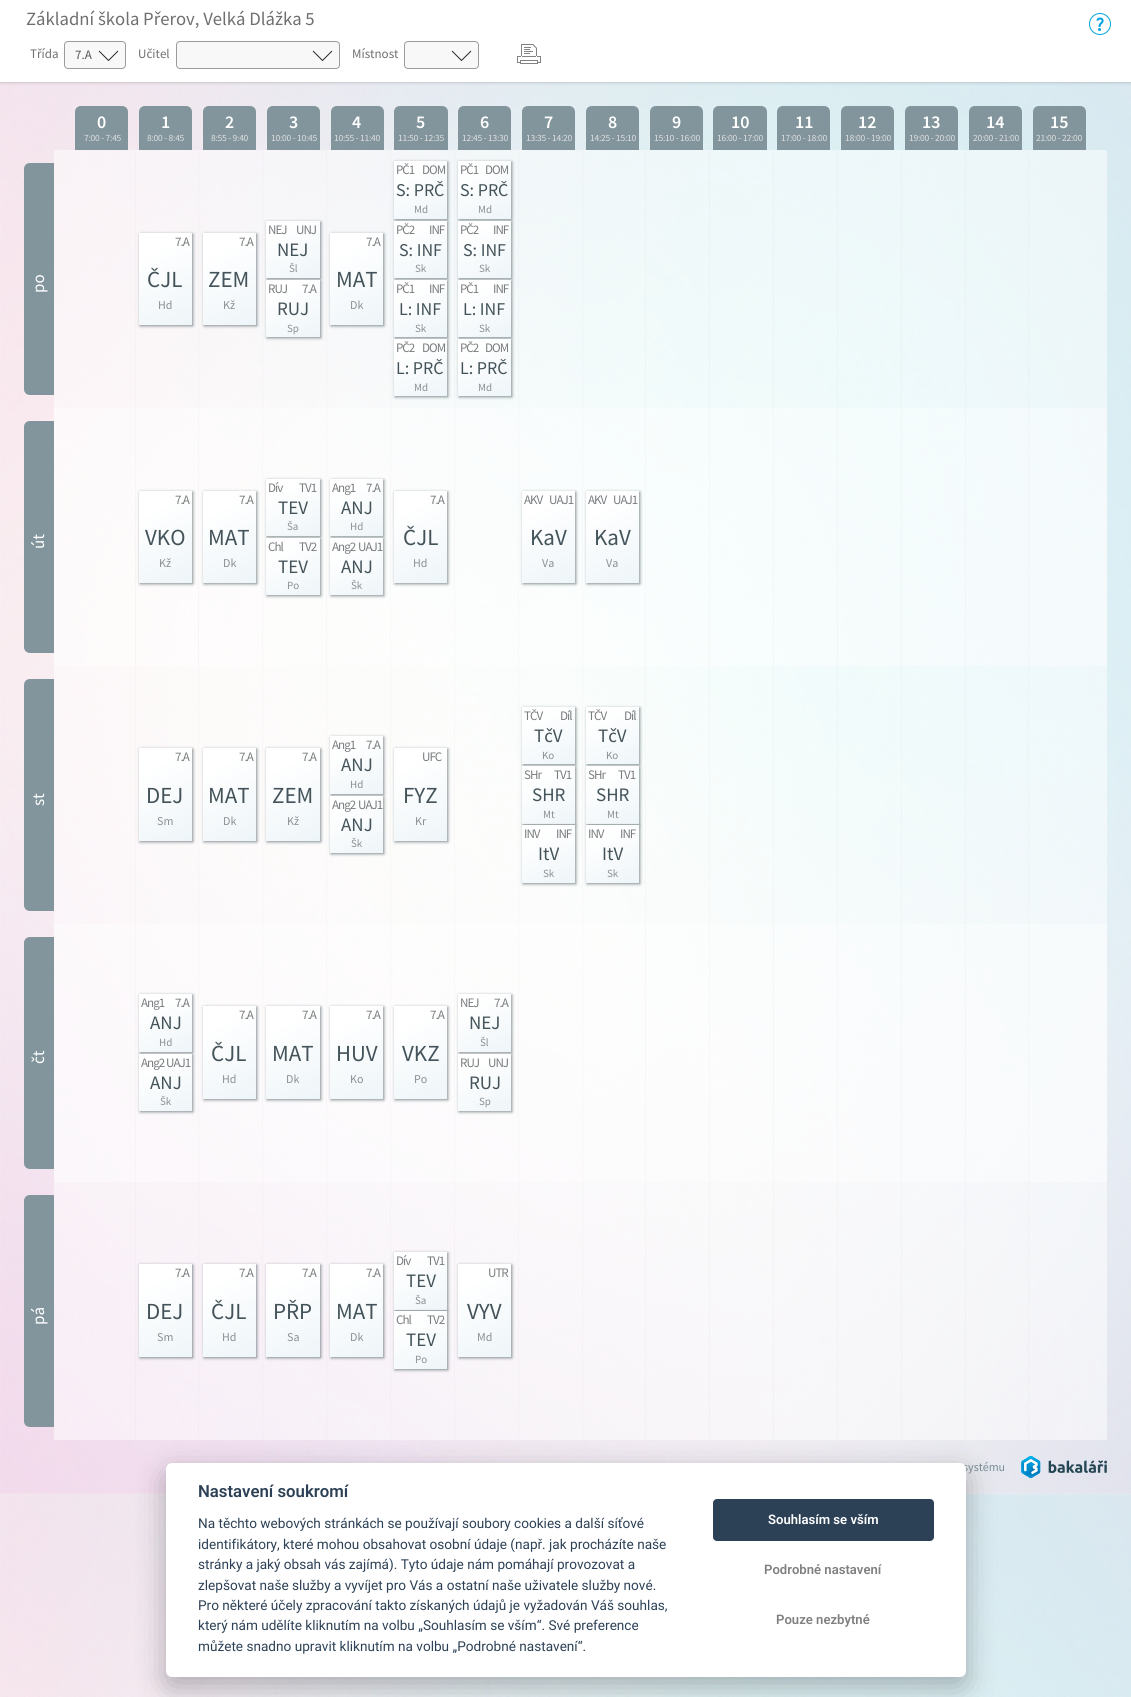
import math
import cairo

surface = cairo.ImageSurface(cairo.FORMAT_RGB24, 1131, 1697)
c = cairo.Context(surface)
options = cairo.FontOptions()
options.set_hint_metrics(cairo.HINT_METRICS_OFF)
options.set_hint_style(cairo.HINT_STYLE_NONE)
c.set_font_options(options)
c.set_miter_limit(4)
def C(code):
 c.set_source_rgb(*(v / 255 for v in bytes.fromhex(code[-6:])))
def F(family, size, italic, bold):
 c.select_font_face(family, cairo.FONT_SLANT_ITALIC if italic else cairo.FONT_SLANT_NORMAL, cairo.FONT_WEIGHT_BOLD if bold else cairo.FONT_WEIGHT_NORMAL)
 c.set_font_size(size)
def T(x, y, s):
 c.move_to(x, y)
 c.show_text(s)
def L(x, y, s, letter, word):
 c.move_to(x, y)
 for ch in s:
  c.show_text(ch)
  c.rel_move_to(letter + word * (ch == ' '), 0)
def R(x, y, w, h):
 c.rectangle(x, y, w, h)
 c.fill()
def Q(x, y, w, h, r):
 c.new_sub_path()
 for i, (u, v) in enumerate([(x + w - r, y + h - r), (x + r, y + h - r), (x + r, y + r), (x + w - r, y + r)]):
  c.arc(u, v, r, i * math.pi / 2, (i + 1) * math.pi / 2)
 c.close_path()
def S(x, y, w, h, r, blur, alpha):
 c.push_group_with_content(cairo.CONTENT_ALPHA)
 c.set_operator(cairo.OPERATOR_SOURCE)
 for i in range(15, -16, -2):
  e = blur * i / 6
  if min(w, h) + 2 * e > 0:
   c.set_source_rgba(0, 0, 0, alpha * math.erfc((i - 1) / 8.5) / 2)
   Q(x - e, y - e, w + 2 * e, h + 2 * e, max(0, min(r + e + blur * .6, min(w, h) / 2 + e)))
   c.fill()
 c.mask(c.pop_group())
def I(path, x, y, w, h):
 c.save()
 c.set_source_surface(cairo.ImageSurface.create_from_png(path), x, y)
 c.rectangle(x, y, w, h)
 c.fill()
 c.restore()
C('ffffff')
c.paint()
I('1.png',0,82,1131,1615)
C('000000')
S(0,0,1131,82,0,2,.25)
C('ffffff')
R(0,0,1131,82)
F('Source Sans Pro',18.7,0,0)
C('6f6f6f')
T(26,25,'Základní škola Přerov, Velká Dlážka 5')
F('Source Sans Pro',13,0,0)
T(30,58,'Třída')
C('f8f8f8')
Q(64.5,41.5,61,27,3.5)
c.fill_preserve()
C('9b9b9b')
c.set_line_width(1)
c.stroke()
C('555555')
T(75,59,'7.A')
I('2.png',98,50,21,11)
C('6f6f6f')
T(138,58,'Učitel')
C('f8f8f8')
Q(176.5,41.5,163,27,3.5)
c.fill_preserve()
C('9b9b9b')
c.stroke()
I('2.png',312,50,21,11)
C('6f6f6f')
T(352,58,'Místnost')
C('f8f8f8')
Q(404.5,41.5,74,27,3.5)
c.fill_preserve()
C('9b9b9b')
c.stroke()
I('2.png',451,50,21,11)
I('3.png',517,44,24,20)
I('4.png',1089,13,22,22)
C('82959c')
c.new_path()
c.move_to(81,106)
c.line_to(122,106)
c.curve_to(125.5,106,128,108.5,128,112)
c.line_to(128,150)
c.line_to(75,150)
c.line_to(75,112)
c.curve_to(75,108.5,77.5,106,81,106)
c.close_path()
c.fill()
F('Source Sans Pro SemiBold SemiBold',18,0,0)
C('ffffff')
T(97,128,'0')
F('Source Sans Pro',9.5,0,0)
C('e0e0e0')
L(84,141,'7:00 - 7:45',-.25,0)
C('82959c')
c.new_path()
c.move_to(145,106)
c.line_to(186,106)
c.curve_to(189.5,106,192,108.5,192,112)
c.line_to(192,150)
c.line_to(139,150)
c.line_to(139,112)
c.curve_to(139,108.5,141.5,106,145,106)
c.close_path()
c.fill()
F('Source Sans Pro SemiBold SemiBold',18,0,0)
C('ffffff')
T(161,128,'1')
F('Source Sans Pro',9.5,0,0)
C('e0e0e0')
L(147,141,'8:00 - 8:45',-.25,0)
C('82959c')
c.new_path()
c.move_to(209,106)
c.line_to(250,106)
c.curve_to(253.5,106,256,108.5,256,112)
c.line_to(256,150)
c.line_to(203,150)
c.line_to(203,112)
c.curve_to(203,108.5,205.5,106,209,106)
c.close_path()
c.fill()
F('Source Sans Pro SemiBold SemiBold',18,0,0)
C('ffffff')
T(225,128,'2')
F('Source Sans Pro',9.5,0,0)
C('e0e0e0')
L(211,141,'8:55 - 9:40',-.25,0)
C('82959c')
c.new_path()
c.move_to(273,106)
c.line_to(314,106)
c.curve_to(317.5,106,320,108.5,320,112)
c.line_to(320,150)
c.line_to(267,150)
c.line_to(267,112)
c.curve_to(267,108.5,269.5,106,273,106)
c.close_path()
c.fill()
F('Source Sans Pro SemiBold SemiBold',18,0,0)
C('ffffff')
T(289,128,'3')
F('Source Sans Pro',9.5,0,0)
C('e0e0e0')
L(271,141,'10:00 - 10:45',-.25,0)
C('82959c')
c.new_path()
c.move_to(337,106)
c.line_to(378,106)
c.curve_to(381.5,106,384,108.5,384,112)
c.line_to(384,150)
c.line_to(331,150)
c.line_to(331,112)
c.curve_to(331,108.5,333.5,106,337,106)
c.close_path()
c.fill()
F('Source Sans Pro SemiBold SemiBold',18,0,0)
C('ffffff')
T(352,128,'4')
F('Source Sans Pro',9.5,0,0)
C('e0e0e0')
L(334,141,'10:55 - 11:40',-.25,0)
C('82959c')
c.new_path()
c.move_to(400,106)
c.line_to(442,106)
c.curve_to(445.5,106,448,108.5,448,112)
c.line_to(448,150)
c.line_to(394,150)
c.line_to(394,112)
c.curve_to(394,108.5,396.5,106,400,106)
c.close_path()
c.fill()
F('Source Sans Pro SemiBold SemiBold',18,0,0)
C('ffffff')
T(416,128,'5')
F('Source Sans Pro',9.5,0,0)
C('e0e0e0')
L(398,141,'11:50 - 12:35',-.25,0)
C('82959c')
c.new_path()
c.move_to(464,106)
c.line_to(505,106)
c.curve_to(508.5,106,511,108.5,511,112)
c.line_to(511,150)
c.line_to(458,150)
c.line_to(458,112)
c.curve_to(458,108.5,460.5,106,464,106)
c.close_path()
c.fill()
F('Source Sans Pro SemiBold SemiBold',18,0,0)
C('ffffff')
T(480,128,'6')
F('Source Sans Pro',9.5,0,0)
C('e0e0e0')
L(462,141,'12:45 - 13:30',-.25,0)
C('82959c')
c.new_path()
c.move_to(528,106)
c.line_to(569,106)
c.curve_to(572.5,106,575,108.5,575,112)
c.line_to(575,150)
c.line_to(522,150)
c.line_to(522,112)
c.curve_to(522,108.5,524.5,106,528,106)
c.close_path()
c.fill()
F('Source Sans Pro SemiBold SemiBold',18,0,0)
C('ffffff')
T(544,128,'7')
F('Source Sans Pro',9.5,0,0)
C('e0e0e0')
L(526,141,'13:35 - 14:20',-.25,0)
C('82959c')
c.new_path()
c.move_to(592,106)
c.line_to(633,106)
c.curve_to(636.5,106,639,108.5,639,112)
c.line_to(639,150)
c.line_to(586,150)
c.line_to(586,112)
c.curve_to(586,108.5,588.5,106,592,106)
c.close_path()
c.fill()
F('Source Sans Pro SemiBold SemiBold',18,0,0)
C('ffffff')
T(608,128,'8')
F('Source Sans Pro',9.5,0,0)
C('e0e0e0')
L(590,141,'14:25 - 15:10',-.25,0)
C('82959c')
c.new_path()
c.move_to(656,106)
c.line_to(697,106)
c.curve_to(700.5,106,703,108.5,703,112)
c.line_to(703,150)
c.line_to(650,150)
c.line_to(650,112)
c.curve_to(650,108.5,652.5,106,656,106)
c.close_path()
c.fill()
F('Source Sans Pro SemiBold SemiBold',18,0,0)
C('ffffff')
T(672,128,'9')
F('Source Sans Pro',9.5,0,0)
C('e0e0e0')
L(654,141,'15:10 - 16:00',-.25,0)
C('82959c')
c.new_path()
c.move_to(719,106)
c.line_to(761,106)
c.curve_to(764.5,106,767,108.5,767,112)
c.line_to(767,150)
c.line_to(713,150)
c.line_to(713,112)
c.curve_to(713,108.5,715.5,106,719,106)
c.close_path()
c.fill()
F('Source Sans Pro SemiBold SemiBold',18,0,0)
C('ffffff')
T(731,128,'10')
F('Source Sans Pro',9.5,0,0)
C('e0e0e0')
L(717,141,'16:00 - 17:00',-.25,0)
C('82959c')
c.new_path()
c.move_to(783,106)
c.line_to(824,106)
c.curve_to(827.5,106,830,108.5,830,112)
c.line_to(830,150)
c.line_to(777,150)
c.line_to(777,112)
c.curve_to(777,108.5,779.5,106,783,106)
c.close_path()
c.fill()
F('Source Sans Pro SemiBold SemiBold',18,0,0)
C('ffffff')
T(795,128,'11')
F('Source Sans Pro',9.5,0,0)
C('e0e0e0')
L(781,141,'17:00 - 18:00',-.25,0)
C('82959c')
c.new_path()
c.move_to(847,106)
c.line_to(888,106)
c.curve_to(891.5,106,894,108.5,894,112)
c.line_to(894,150)
c.line_to(841,150)
c.line_to(841,112)
c.curve_to(841,108.5,843.5,106,847,106)
c.close_path()
c.fill()
F('Source Sans Pro SemiBold SemiBold',18,0,0)
C('ffffff')
T(858,128,'12')
F('Source Sans Pro',9.5,0,0)
C('e0e0e0')
L(845,141,'18:00 - 19:00',-.25,0)
C('82959c')
c.new_path()
c.move_to(911,106)
c.line_to(952,106)
c.curve_to(955.5,106,958,108.5,958,112)
c.line_to(958,150)
c.line_to(905,150)
c.line_to(905,112)
c.curve_to(905,108.5,907.5,106,911,106)
c.close_path()
c.fill()
F('Source Sans Pro SemiBold SemiBold',18,0,0)
C('ffffff')
T(922,128,'13')
F('Source Sans Pro',9.5,0,0)
C('e0e0e0')
L(909,141,'19:00 - 20:00',-.25,0)
C('82959c')
c.new_path()
c.move_to(975,106)
c.line_to(1016,106)
c.curve_to(1019.5,106,1022,108.5,1022,112)
c.line_to(1022,150)
c.line_to(969,150)
c.line_to(969,112)
c.curve_to(969,108.5,971.5,106,975,106)
c.close_path()
c.fill()
F('Source Sans Pro SemiBold SemiBold',18,0,0)
C('ffffff')
T(986,128,'14')
F('Source Sans Pro',9.5,0,0)
C('e0e0e0')
L(973,141,'20:00 - 21:00',-.25,0)
C('82959c')
c.new_path()
c.move_to(1039,106)
c.line_to(1080,106)
c.curve_to(1083.5,106,1086,108.5,1086,112)
c.line_to(1086,150)
c.line_to(1033,150)
c.line_to(1033,112)
c.curve_to(1033,108.5,1035.5,106,1039,106)
c.close_path()
c.fill()
F('Source Sans Pro SemiBold SemiBold',18,0,0)
C('ffffff')
T(1050,128,'15')
F('Source Sans Pro',9.5,0,0)
C('e0e0e0')
L(1036,141,'21:00 - 22:00',-.25,0)
C('82959c')
c.new_path()
c.move_to(30,163)
c.line_to(54,163)
c.line_to(54,395)
c.line_to(30,395)
c.curve_to(26.5,395,24,392.5,24,389)
c.line_to(24,169)
c.curve_to(24,165.5,26.5,163,30,163)
c.close_path()
c.fill()
F('Source Sans Pro',17,0,0)
C('ffffff')
c.save()
c.translate(44,293)
c.rotate(-90 * math.pi / 180)
T(0,0,'po')
c.restore()
c.set_source_rgba(1,1,1,0.5)
R(54,150,1053,258)
c.set_source_rgba(0.263,0.325,0.349,0.03)
R(135,150,1,258)
C('435359')
S(140,234,53,92,0,1.5,.65)
gradient = cairo.LinearGradient(141,232,190,326)
gradient.add_color_stop_rgba(.21,1,1,1,1)
gradient.add_color_stop_rgba(1,0.933,0.961,0.973,1)
c.set_source(gradient)
R(139,233,53,92)
F('Source Sans Pro',13,0,0)
C('797c7e')
L(175,246,'7.A',-1,0)
F('Source Sans Pro',23,0,0)
C('435359')
T(147,287,'ČJL')
F('Source Sans Pro',12,0,0)
C('8b8f92')
T(158,309,'Hd')
c.set_source_rgba(0.263,0.325,0.349,0.03)
R(198,150,1,258)
C('435359')
S(204,234,53,92,0,1.5,.65)
gradient = cairo.LinearGradient(205,232,254,326)
gradient.add_color_stop_rgba(.21,1,1,1,1)
gradient.add_color_stop_rgba(1,0.933,0.961,0.973,1)
c.set_source(gradient)
R(203,233,53,92)
F('Source Sans Pro',13,0,0)
C('797c7e')
L(239,246,'7.A',-1,0)
F('Source Sans Pro',23,0,0)
C('435359')
T(208,287,'ZEM')
F('Source Sans Pro',12,0,0)
C('8b8f92')
T(223,309,'Kž')
c.set_source_rgba(0.263,0.325,0.349,0.03)
R(262,150,1,258)
C('435359')
S(267,222,54,57,0,1.5,.65)
gradient = cairo.LinearGradient(275,216,311,283)
gradient.add_color_stop_rgba(.21,1,1,1,1)
gradient.add_color_stop_rgba(1,0.933,0.961,0.973,1)
c.set_source(gradient)
R(266,221,54,57)
F('Source Sans Pro',13,0,0)
C('797c7e')
L(268,234,'NEJ',-1,0)
L(296,234,'UNJ',-1,0)
F('Source Sans Pro',19,0,0)
C('435359')
T(277,256,'NEJ')
F('Source Sans Pro',11,0,0)
C('8b8f92')
T(289,272,'Šl')
C('435359')
S(267,281,54,57,0,1.5,.65)
gradient = cairo.LinearGradient(275,275,311,342)
gradient.add_color_stop_rgba(.21,1,1,1,1)
gradient.add_color_stop_rgba(1,0.933,0.961,0.973,1)
c.set_source(gradient)
R(266,280,54,57)
F('Source Sans Pro',13,0,0)
C('797c7e')
L(268,293,'RUJ',-1,0)
L(302,293,'7.A',-1,0)
F('Source Sans Pro',19,0,0)
C('435359')
T(277,315,'RUJ')
F('Source Sans Pro',11,0,0)
C('8b8f92')
T(287,332,'Sp')
c.set_source_rgba(0.263,0.325,0.349,0.03)
R(326,150,1,258)
C('435359')
S(331,234,53,92,0,1.5,.65)
gradient = cairo.LinearGradient(332,232,381,326)
gradient.add_color_stop_rgba(.21,1,1,1,1)
gradient.add_color_stop_rgba(1,0.933,0.961,0.973,1)
c.set_source(gradient)
R(330,233,53,92)
F('Source Sans Pro',13,0,0)
C('797c7e')
L(366,246,'7.A',-1,0)
F('Source Sans Pro',23,0,0)
C('435359')
T(336,287,'MAT')
F('Source Sans Pro',12,0,0)
C('8b8f92')
T(350,309,'Dk')
c.set_source_rgba(0.263,0.325,0.349,0.03)
R(390,150,1,258)
C('435359')
S(395,162,53,58,0,1.5,.65)
gradient = cairo.LinearGradient(403,156,438,224)
gradient.add_color_stop_rgba(.21,1,1,1,1)
gradient.add_color_stop_rgba(1,0.933,0.961,0.973,1)
c.set_source(gradient)
R(394,161,53,58)
F('Source Sans Pro',13,0,0)
C('797c7e')
L(396,174,'PČ1',-1,0)
L(422,174,'DOM',-1,0)
F('Source Sans Pro',18,0,0)
C('435359')
T(396,196,'S: PRČ')
F('Source Sans Pro',11,0,0)
C('8b8f92')
T(414,213,'Md')
C('435359')
S(395,222,53,57,0,1.5,.65)
gradient = cairo.LinearGradient(403,216,438,283)
gradient.add_color_stop_rgba(.21,1,1,1,1)
gradient.add_color_stop_rgba(1,0.933,0.961,0.973,1)
c.set_source(gradient)
R(394,221,53,57)
F('Source Sans Pro',13,0,0)
C('797c7e')
L(396,234,'PČ2',-1,0)
L(429,234,'INF',-1,0)
F('Source Sans Pro',18,0,0)
C('435359')
T(399,256,'S: INF')
F('Source Sans Pro',11,0,0)
C('8b8f92')
T(415,272,'Sk')
C('435359')
S(395,281,53,57,0,1.5,.65)
gradient = cairo.LinearGradient(403,275,438,342)
gradient.add_color_stop_rgba(.21,1,1,1,1)
gradient.add_color_stop_rgba(1,0.933,0.961,0.973,1)
c.set_source(gradient)
R(394,280,53,57)
F('Source Sans Pro',13,0,0)
C('797c7e')
L(396,293,'PČ1',-1,0)
L(429,293,'INF',-1,0)
F('Source Sans Pro',18,0,0)
C('435359')
T(399,315,'L: INF')
F('Source Sans Pro',11,0,0)
C('8b8f92')
T(415,332,'Sk')
C('435359')
S(395,340,53,57,0,1.5,.65)
gradient = cairo.LinearGradient(403,334,438,401)
gradient.add_color_stop_rgba(.21,1,1,1,1)
gradient.add_color_stop_rgba(1,0.933,0.961,0.973,1)
c.set_source(gradient)
R(394,339,53,57)
F('Source Sans Pro',13,0,0)
C('797c7e')
L(396,352,'PČ2',-1,0)
L(422,352,'DOM',-1,0)
F('Source Sans Pro',18,0,0)
C('435359')
T(396,374,'L: PRČ')
F('Source Sans Pro',11,0,0)
C('8b8f92')
T(414,391,'Md')
c.set_source_rgba(0.263,0.325,0.349,0.03)
R(454,150,1,258)
C('435359')
S(459,162,53,58,0,1.5,.65)
gradient = cairo.LinearGradient(467,156,502,224)
gradient.add_color_stop_rgba(.21,1,1,1,1)
gradient.add_color_stop_rgba(1,0.933,0.961,0.973,1)
c.set_source(gradient)
R(458,161,53,58)
F('Source Sans Pro',13,0,0)
C('797c7e')
L(460,174,'PČ1',-1,0)
L(485,174,'DOM',-1,0)
F('Source Sans Pro',18,0,0)
C('435359')
T(460,196,'S: PRČ')
F('Source Sans Pro',11,0,0)
C('8b8f92')
T(478,213,'Md')
C('435359')
S(459,222,53,57,0,1.5,.65)
gradient = cairo.LinearGradient(467,216,502,283)
gradient.add_color_stop_rgba(.21,1,1,1,1)
gradient.add_color_stop_rgba(1,0.933,0.961,0.973,1)
c.set_source(gradient)
R(458,221,53,57)
F('Source Sans Pro',13,0,0)
C('797c7e')
L(460,234,'PČ2',-1,0)
L(493,234,'INF',-1,0)
F('Source Sans Pro',18,0,0)
C('435359')
T(463,256,'S: INF')
F('Source Sans Pro',11,0,0)
C('8b8f92')
T(479,272,'Sk')
C('435359')
S(459,281,53,57,0,1.5,.65)
gradient = cairo.LinearGradient(467,275,502,342)
gradient.add_color_stop_rgba(.21,1,1,1,1)
gradient.add_color_stop_rgba(1,0.933,0.961,0.973,1)
c.set_source(gradient)
R(458,280,53,57)
F('Source Sans Pro',13,0,0)
C('797c7e')
L(460,293,'PČ1',-1,0)
L(493,293,'INF',-1,0)
F('Source Sans Pro',18,0,0)
C('435359')
T(463,315,'L: INF')
F('Source Sans Pro',11,0,0)
C('8b8f92')
T(479,332,'Sk')
C('435359')
S(459,340,53,57,0,1.5,.65)
gradient = cairo.LinearGradient(467,334,502,401)
gradient.add_color_stop_rgba(.21,1,1,1,1)
gradient.add_color_stop_rgba(1,0.933,0.961,0.973,1)
c.set_source(gradient)
R(458,339,53,57)
F('Source Sans Pro',13,0,0)
C('797c7e')
L(460,352,'PČ2',-1,0)
L(485,352,'DOM',-1,0)
F('Source Sans Pro',18,0,0)
C('435359')
T(460,374,'L: PRČ')
F('Source Sans Pro',11,0,0)
C('8b8f92')
T(478,391,'Md')
c.set_source_rgba(0.263,0.325,0.349,0.03)
R(518,150,1,258)
R(582,150,1,258)
R(645,150,1,258)
R(709,150,1,258)
R(773,150,1,258)
R(837,150,1,258)
R(901,150,1,258)
R(965,150,1,258)
R(1028,150,1,258)
C('82959c')
c.new_path()
c.move_to(30,421)
c.line_to(54,421)
c.line_to(54,653)
c.line_to(30,653)
c.curve_to(26.5,653,24,650.5,24,647)
c.line_to(24,427)
c.curve_to(24,423.5,26.5,421,30,421)
c.close_path()
c.fill()
F('Source Sans Pro',17,0,0)
C('ffffff')
c.save()
c.translate(44,549)
c.rotate(-90 * math.pi / 180)
T(0,0,'út')
c.restore()
c.set_source_rgba(1,1,1,0.7)
R(54,408,1053,258)
C('f8f5f6')
R(135,408,1,258)
C('435359')
S(140,492,53,92,0,1.5,.65)
gradient = cairo.LinearGradient(141,490,190,584)
gradient.add_color_stop_rgba(.21,1,1,1,1)
gradient.add_color_stop_rgba(1,0.933,0.961,0.973,1)
c.set_source(gradient)
R(139,491,53,92)
F('Source Sans Pro',13,0,0)
C('797c7e')
L(175,504,'7.A',-1,0)
F('Source Sans Pro',23,0,0)
C('435359')
T(145,545,'VKO')
F('Source Sans Pro',12,0,0)
C('8b8f92')
T(159,567,'Kž')
C('f7f6f7')
R(198,408,1,258)
C('435359')
S(204,492,53,92,0,1.5,.65)
gradient = cairo.LinearGradient(205,490,254,584)
gradient.add_color_stop_rgba(.21,1,1,1,1)
gradient.add_color_stop_rgba(1,0.933,0.961,0.973,1)
c.set_source(gradient)
R(203,491,53,92)
F('Source Sans Pro',13,0,0)
C('797c7e')
L(239,504,'7.A',-1,0)
F('Source Sans Pro',23,0,0)
C('435359')
T(208,545,'MAT')
F('Source Sans Pro',12,0,0)
C('8b8f92')
T(223,567,'Dk')
C('f7f7f7')
R(262,408,1,258)
C('435359')
S(267,480,54,57,0,1.5,.65)
gradient = cairo.LinearGradient(275,474,311,541)
gradient.add_color_stop_rgba(.21,1,1,1,1)
gradient.add_color_stop_rgba(1,0.933,0.961,0.973,1)
c.set_source(gradient)
R(266,479,54,57)
F('Source Sans Pro',13,0,0)
C('797c7e')
L(268,492,'Dív',-1,0)
L(299,492,'TV1',-1,0)
F('Source Sans Pro',19,0,0)
C('435359')
T(278,514,'TEV')
F('Source Sans Pro',11,0,0)
C('8b8f92')
T(287,530,'Ša')
C('435359')
S(267,539,54,57,0,1.5,.65)
gradient = cairo.LinearGradient(275,533,311,600)
gradient.add_color_stop_rgba(.21,1,1,1,1)
gradient.add_color_stop_rgba(1,0.933,0.961,0.973,1)
c.set_source(gradient)
R(266,538,54,57)
F('Source Sans Pro',13,0,0)
C('797c7e')
L(268,551,'Chl',-1,0)
L(299,551,'TV2',-1,0)
F('Source Sans Pro',19,0,0)
C('435359')
T(278,573,'TEV')
F('Source Sans Pro',11,0,0)
C('8b8f92')
T(287,589,'Po')
C('f7f7f7')
R(326,408,1,258)
C('435359')
S(331,480,53,57,0,1.5,.65)
gradient = cairo.LinearGradient(339,474,374,541)
gradient.add_color_stop_rgba(.21,1,1,1,1)
gradient.add_color_stop_rgba(1,0.933,0.961,0.973,1)
c.set_source(gradient)
R(330,479,53,57)
F('Source Sans Pro',13,0,0)
C('797c7e')
L(332,492,'Ang1',-1,0)
L(366,492,'7.A',-1,0)
F('Source Sans Pro',19,0,0)
C('435359')
T(341,514,'ANJ')
F('Source Sans Pro',11,0,0)
C('8b8f92')
T(350,530,'Hd')
C('435359')
S(331,539,53,57,0,1.5,.65)
gradient = cairo.LinearGradient(339,533,374,600)
gradient.add_color_stop_rgba(.21,1,1,1,1)
gradient.add_color_stop_rgba(1,0.933,0.961,0.973,1)
c.set_source(gradient)
R(330,538,53,57)
F('Source Sans Pro',13,0,0)
C('797c7e')
L(332,551,'Ang2',-1,0)
L(358,551,'UAJ1',-1,0)
F('Source Sans Pro',19,0,0)
C('435359')
T(341,573,'ANJ')
F('Source Sans Pro',11,0,0)
C('8b8f92')
T(351,589,'Šk')
c.set_source_rgba(0.263,0.325,0.349,0.03)
R(390,408,1,258)
C('435359')
S(395,492,53,92,0,1.5,.65)
gradient = cairo.LinearGradient(396,490,445,584)
gradient.add_color_stop_rgba(.21,1,1,1,1)
gradient.add_color_stop_rgba(1,0.933,0.961,0.973,1)
c.set_source(gradient)
R(394,491,53,92)
F('Source Sans Pro',13,0,0)
C('797c7e')
L(430,504,'7.A',-1,0)
F('Source Sans Pro',23,0,0)
C('435359')
T(403,545,'ČJL')
F('Source Sans Pro',12,0,0)
C('8b8f92')
T(413,567,'Hd')
c.set_source_rgba(0.263,0.325,0.349,0.03)
R(454,408,1,258)
R(518,408,1,258)
C('435359')
S(523,492,53,92,0,1.5,.65)
gradient = cairo.LinearGradient(524,490,573,584)
gradient.add_color_stop_rgba(.21,1,1,1,1)
gradient.add_color_stop_rgba(1,0.933,0.961,0.973,1)
c.set_source(gradient)
R(522,491,53,92)
F('Source Sans Pro',13,0,0)
C('797c7e')
L(524,504,'AKV',-1,0)
L(549,504,'UAJ1',-1,0)
F('Source Sans Pro',23,0,0)
C('435359')
T(530,545,'KaV')
F('Source Sans Pro',12,0,0)
C('8b8f92')
T(542,567,'Va')
c.set_source_rgba(0.263,0.325,0.349,0.03)
R(582,408,1,258)
C('435359')
S(587,492,53,92,0,1.5,.65)
gradient = cairo.LinearGradient(588,490,637,584)
gradient.add_color_stop_rgba(.21,1,1,1,1)
gradient.add_color_stop_rgba(1,0.933,0.961,0.973,1)
c.set_source(gradient)
R(586,491,53,92)
F('Source Sans Pro',13,0,0)
C('797c7e')
L(588,504,'AKV',-1,0)
L(613,504,'UAJ1',-1,0)
F('Source Sans Pro',23,0,0)
C('435359')
T(594,545,'KaV')
F('Source Sans Pro',12,0,0)
C('8b8f92')
T(606,567,'Va')
c.set_source_rgba(0.263,0.325,0.349,0.03)
R(645,408,1,258)
R(709,408,1,258)
C('f1f8f7')
R(773,408,1,258)
C('f1f7f7')
R(837,408,1,258)
C('f0f7f7')
R(901,408,1,258)
C('f0f6f7')
R(965,408,1,258)
C('eff6f7')
R(1028,408,1,258)
C('82959c')
c.new_path()
c.move_to(30,679)
c.line_to(54,679)
c.line_to(54,911)
c.line_to(30,911)
c.curve_to(26.5,911,24,908.5,24,905)
c.line_to(24,685)
c.curve_to(24,681.5,26.5,679,30,679)
c.close_path()
c.fill()
F('Source Sans Pro',17,0,0)
C('ffffff')
c.save()
c.translate(44,806)
c.rotate(-90 * math.pi / 180)
T(0,0,'st')
c.restore()
c.set_source_rgba(1,1,1,0.5)
R(54,666,1053,258)
c.set_source_rgba(0.263,0.325,0.349,0.03)
R(135,666,1,258)
C('435359')
S(140,749,53,93,0,1.5,.65)
gradient = cairo.LinearGradient(140,747,191,842)
gradient.add_color_stop_rgba(.21,1,1,1,1)
gradient.add_color_stop_rgba(1,0.933,0.961,0.973,1)
c.set_source(gradient)
R(139,748,53,93)
F('Source Sans Pro',13,0,0)
C('797c7e')
L(175,761,'7.A',-1,0)
F('Source Sans Pro',23,0,0)
C('435359')
T(146,803,'DEJ')
F('Source Sans Pro',12,0,0)
C('8b8f92')
T(157,825,'Sm')
c.set_source_rgba(0.263,0.325,0.349,0.03)
R(198,666,1,258)
C('435359')
S(204,749,53,93,0,1.5,.65)
gradient = cairo.LinearGradient(204,747,255,842)
gradient.add_color_stop_rgba(.21,1,1,1,1)
gradient.add_color_stop_rgba(1,0.933,0.961,0.973,1)
c.set_source(gradient)
R(203,748,53,93)
F('Source Sans Pro',13,0,0)
C('797c7e')
L(239,761,'7.A',-1,0)
F('Source Sans Pro',23,0,0)
C('435359')
T(208,803,'MAT')
F('Source Sans Pro',12,0,0)
C('8b8f92')
T(223,825,'Dk')
c.set_source_rgba(0.263,0.325,0.349,0.03)
R(262,666,1,258)
C('435359')
S(267,749,54,93,0,1.5,.65)
gradient = cairo.LinearGradient(268,747,318,842)
gradient.add_color_stop_rgba(.21,1,1,1,1)
gradient.add_color_stop_rgba(1,0.933,0.961,0.973,1)
c.set_source(gradient)
R(266,748,54,93)
F('Source Sans Pro',13,0,0)
C('797c7e')
L(302,761,'7.A',-1,0)
F('Source Sans Pro',23,0,0)
C('435359')
T(272,803,'ZEM')
F('Source Sans Pro',12,0,0)
C('8b8f92')
T(287,825,'Kž')
c.set_source_rgba(0.263,0.325,0.349,0.03)
R(326,666,1,258)
C('435359')
S(331,737,53,58,0,1.5,.65)
gradient = cairo.LinearGradient(339,731,374,799)
gradient.add_color_stop_rgba(.21,1,1,1,1)
gradient.add_color_stop_rgba(1,0.933,0.961,0.973,1)
c.set_source(gradient)
R(330,736,53,58)
F('Source Sans Pro',13,0,0)
C('797c7e')
L(332,749,'Ang1',-1,0)
L(366,749,'7.A',-1,0)
F('Source Sans Pro',19,0,0)
C('435359')
T(341,771,'ANJ')
F('Source Sans Pro',11,0,0)
C('8b8f92')
T(350,788,'Hd')
C('435359')
S(331,797,53,57,0,1.5,.65)
gradient = cairo.LinearGradient(339,791,374,858)
gradient.add_color_stop_rgba(.21,1,1,1,1)
gradient.add_color_stop_rgba(1,0.933,0.961,0.973,1)
c.set_source(gradient)
R(330,796,53,57)
F('Source Sans Pro',13,0,0)
C('797c7e')
L(332,809,'Ang2',-1,0)
L(358,809,'UAJ1',-1,0)
F('Source Sans Pro',19,0,0)
C('435359')
T(341,831,'ANJ')
F('Source Sans Pro',11,0,0)
C('8b8f92')
T(351,847,'Šk')
C('f7f7f6')
R(390,666,1,258)
C('435359')
S(395,749,53,93,0,1.5,.65)
gradient = cairo.LinearGradient(395,747,446,842)
gradient.add_color_stop_rgba(.21,1,1,1,1)
gradient.add_color_stop_rgba(1,0.933,0.961,0.973,1)
c.set_source(gradient)
R(394,748,53,93)
F('Source Sans Pro',13,0,0)
C('797c7e')
L(422,761,'UFC',-1,0)
F('Source Sans Pro',23,0,0)
C('435359')
T(403,803,'FYZ')
F('Source Sans Pro',12,0,0)
C('8b8f92')
T(415,825,'Kr')
c.set_source_rgba(0.263,0.325,0.349,0.03)
R(454,666,1,258)
R(518,666,1,258)
C('435359')
S(523,708,53,57,0,1.5,.65)
gradient = cairo.LinearGradient(531,702,566,769)
gradient.add_color_stop_rgba(.21,1,1,1,1)
gradient.add_color_stop_rgba(1,0.933,0.961,0.973,1)
c.set_source(gradient)
R(522,707,53,57)
F('Source Sans Pro',13,0,0)
C('797c7e')
L(524,720,'TČV',-1,0)
L(560,720,'Díl',-1,0)
F('Source Sans Pro',19,0,0)
C('435359')
T(534,742,'TčV')
F('Source Sans Pro',11,0,0)
C('8b8f92')
T(542,759,'Ko')
C('435359')
S(523,767,53,58,0,1.5,.65)
gradient = cairo.LinearGradient(531,761,566,829)
gradient.add_color_stop_rgba(.21,1,1,1,1)
gradient.add_color_stop_rgba(1,0.933,0.961,0.973,1)
c.set_source(gradient)
R(522,766,53,58)
F('Source Sans Pro',13,0,0)
C('797c7e')
L(524,779,'SHr',-1,0)
L(554,779,'TV1',-1,0)
F('Source Sans Pro',19,0,0)
C('435359')
T(532,801,'SHR')
F('Source Sans Pro',11,0,0)
C('8b8f92')
T(543,818,'Mt')
C('435359')
S(523,826,53,58,0,1.5,.65)
gradient = cairo.LinearGradient(531,820,566,888)
gradient.add_color_stop_rgba(.21,1,1,1,1)
gradient.add_color_stop_rgba(1,0.933,0.961,0.973,1)
c.set_source(gradient)
R(522,825,53,58)
F('Source Sans Pro',13,0,0)
C('797c7e')
L(524,838,'INV',-1,0)
L(556,838,'INF',-1,0)
F('Source Sans Pro',19,0,0)
C('435359')
T(538,860,'ItV')
F('Source Sans Pro',11,0,0)
C('8b8f92')
T(543,877,'Sk')
c.set_source_rgba(0.263,0.325,0.349,0.03)
R(582,666,1,258)
C('435359')
S(587,708,53,57,0,1.5,.65)
gradient = cairo.LinearGradient(595,702,630,769)
gradient.add_color_stop_rgba(.21,1,1,1,1)
gradient.add_color_stop_rgba(1,0.933,0.961,0.973,1)
c.set_source(gradient)
R(586,707,53,57)
F('Source Sans Pro',13,0,0)
C('797c7e')
L(588,720,'TČV',-1,0)
L(624,720,'Díl',-1,0)
F('Source Sans Pro',19,0,0)
C('435359')
T(598,742,'TčV')
F('Source Sans Pro',11,0,0)
C('8b8f92')
T(606,759,'Ko')
C('435359')
S(587,767,53,58,0,1.5,.65)
gradient = cairo.LinearGradient(595,761,630,829)
gradient.add_color_stop_rgba(.21,1,1,1,1)
gradient.add_color_stop_rgba(1,0.933,0.961,0.973,1)
c.set_source(gradient)
R(586,766,53,58)
F('Source Sans Pro',13,0,0)
C('797c7e')
L(588,779,'SHr',-1,0)
L(618,779,'TV1',-1,0)
F('Source Sans Pro',19,0,0)
C('435359')
T(596,801,'SHR')
F('Source Sans Pro',11,0,0)
C('8b8f92')
T(607,818,'Mt')
C('435359')
S(587,826,53,58,0,1.5,.65)
gradient = cairo.LinearGradient(595,820,630,888)
gradient.add_color_stop_rgba(.21,1,1,1,1)
gradient.add_color_stop_rgba(1,0.933,0.961,0.973,1)
c.set_source(gradient)
R(586,825,53,58)
F('Source Sans Pro',13,0,0)
C('797c7e')
L(588,838,'INV',-1,0)
L(620,838,'INF',-1,0)
F('Source Sans Pro',19,0,0)
C('435359')
T(602,860,'ItV')
F('Source Sans Pro',11,0,0)
C('8b8f92')
T(607,877,'Sk')
c.set_source_rgba(0.263,0.325,0.349,0.03)
R(645,666,1,258)
R(709,666,1,258)
R(773,666,1,258)
R(837,666,1,258)
R(901,666,1,258)
R(965,666,1,258)
R(1028,666,1,258)
C('82959c')
c.new_path()
c.move_to(30,937)
c.line_to(54,937)
c.line_to(54,1169)
c.line_to(30,1169)
c.curve_to(26.5,1169,24,1166.5,24,1163)
c.line_to(24,943)
c.curve_to(24,939.5,26.5,937,30,937)
c.close_path()
c.fill()
F('Source Sans Pro',17,0,0)
C('ffffff')
c.save()
c.translate(44,1064)
c.rotate(-90 * math.pi / 180)
T(0,0,'čt')
c.restore()
c.set_source_rgba(1,1,1,0.7)
R(54,924,1053,258)
c.set_source_rgba(0.263,0.325,0.349,0.03)
R(135,924,1,258)
C('435359')
S(140,995,53,58,0,1.5,.65)
gradient = cairo.LinearGradient(148,989,183,1057)
gradient.add_color_stop_rgba(.21,1,1,1,1)
gradient.add_color_stop_rgba(1,0.933,0.961,0.973,1)
c.set_source(gradient)
R(139,994,53,58)
F('Source Sans Pro',13,0,0)
C('797c7e')
L(141,1007,'Ang1',-1,0)
L(175,1007,'7.A',-1,0)
F('Source Sans Pro',19,0,0)
C('435359')
T(150,1029,'ANJ')
F('Source Sans Pro',11,0,0)
C('8b8f92')
T(159,1046,'Hd')
C('435359')
S(140,1055,53,57,0,1.5,.65)
gradient = cairo.LinearGradient(148,1049,183,1116)
gradient.add_color_stop_rgba(.21,1,1,1,1)
gradient.add_color_stop_rgba(1,0.933,0.961,0.973,1)
c.set_source(gradient)
R(139,1054,53,57)
F('Source Sans Pro',13,0,0)
C('797c7e')
L(141,1067,'Ang2',-1,0)
L(166,1067,'UAJ1',-1,0)
F('Source Sans Pro',19,0,0)
C('435359')
T(150,1089,'ANJ')
F('Source Sans Pro',11,0,0)
C('8b8f92')
T(160,1105,'Šk')
c.set_source_rgba(0.263,0.325,0.349,0.03)
R(198,924,1,258)
C('435359')
S(204,1007,53,93,0,1.5,.65)
gradient = cairo.LinearGradient(204,1005,255,1100)
gradient.add_color_stop_rgba(.21,1,1,1,1)
gradient.add_color_stop_rgba(1,0.933,0.961,0.973,1)
c.set_source(gradient)
R(203,1006,53,93)
F('Source Sans Pro',13,0,0)
C('797c7e')
L(239,1019,'7.A',-1,0)
F('Source Sans Pro',23,0,0)
C('435359')
T(211,1061,'ČJL')
F('Source Sans Pro',12,0,0)
C('8b8f92')
T(222,1083,'Hd')
c.set_source_rgba(0.263,0.325,0.349,0.03)
R(262,924,1,258)
C('435359')
S(267,1007,54,93,0,1.5,.65)
gradient = cairo.LinearGradient(268,1005,318,1100)
gradient.add_color_stop_rgba(.21,1,1,1,1)
gradient.add_color_stop_rgba(1,0.933,0.961,0.973,1)
c.set_source(gradient)
R(266,1006,54,93)
F('Source Sans Pro',13,0,0)
C('797c7e')
L(302,1019,'7.A',-1,0)
F('Source Sans Pro',23,0,0)
C('435359')
T(272,1061,'MAT')
F('Source Sans Pro',12,0,0)
C('8b8f92')
T(286,1083,'Dk')
c.set_source_rgba(0.263,0.325,0.349,0.03)
R(326,924,1,258)
C('435359')
S(331,1007,53,93,0,1.5,.65)
gradient = cairo.LinearGradient(331,1005,382,1100)
gradient.add_color_stop_rgba(.21,1,1,1,1)
gradient.add_color_stop_rgba(1,0.933,0.961,0.973,1)
c.set_source(gradient)
R(330,1006,53,93)
F('Source Sans Pro',13,0,0)
C('797c7e')
L(366,1019,'7.A',-1,0)
F('Source Sans Pro',23,0,0)
C('435359')
T(336,1061,'HUV')
F('Source Sans Pro',12,0,0)
C('8b8f92')
T(350,1083,'Ko')
c.set_source_rgba(0.263,0.325,0.349,0.03)
R(390,924,1,258)
C('435359')
S(395,1007,53,93,0,1.5,.65)
gradient = cairo.LinearGradient(395,1005,446,1100)
gradient.add_color_stop_rgba(.21,1,1,1,1)
gradient.add_color_stop_rgba(1,0.933,0.961,0.973,1)
c.set_source(gradient)
R(394,1006,53,93)
F('Source Sans Pro',13,0,0)
C('797c7e')
L(430,1019,'7.A',-1,0)
F('Source Sans Pro',23,0,0)
C('435359')
T(402,1061,'VKZ')
F('Source Sans Pro',12,0,0)
C('8b8f92')
T(414,1083,'Po')
c.set_source_rgba(0.263,0.325,0.349,0.03)
R(454,924,1,258)
C('435359')
S(459,995,53,58,0,1.5,.65)
gradient = cairo.LinearGradient(467,989,502,1057)
gradient.add_color_stop_rgba(.21,1,1,1,1)
gradient.add_color_stop_rgba(1,0.933,0.961,0.973,1)
c.set_source(gradient)
R(458,994,53,58)
F('Source Sans Pro',13,0,0)
C('797c7e')
L(460,1007,'NEJ',-1,0)
L(494,1007,'7.A',-1,0)
F('Source Sans Pro',19,0,0)
C('435359')
T(469,1029,'NEJ')
F('Source Sans Pro',11,0,0)
C('8b8f92')
T(480,1046,'Šl')
C('435359')
S(459,1055,53,57,0,1.5,.65)
gradient = cairo.LinearGradient(467,1049,502,1116)
gradient.add_color_stop_rgba(.21,1,1,1,1)
gradient.add_color_stop_rgba(1,0.933,0.961,0.973,1)
c.set_source(gradient)
R(458,1054,53,57)
F('Source Sans Pro',13,0,0)
C('797c7e')
L(460,1067,'RUJ',-1,0)
L(488,1067,'UNJ',-1,0)
F('Source Sans Pro',19,0,0)
C('435359')
T(469,1089,'RUJ')
F('Source Sans Pro',11,0,0)
C('8b8f92')
T(479,1105,'Sp')
c.set_source_rgba(0.263,0.325,0.349,0.03)
R(518,924,1,258)
R(582,924,1,258)
C('f7f7f8')
R(645,924,1,258)
C('f6f7f7')
R(709,924,1,258)
C('f5f7f7')
R(773,924,1,258)
C('f5f7f8')
R(837,924,1,258)
c.set_source_rgba(0.263,0.325,0.349,0.03)
R(901,924,1,258)
C('f3f6f7')
R(965,924,1,258)
R(1028,924,1,258)
C('82959c')
c.new_path()
c.move_to(30,1195)
c.line_to(54,1195)
c.line_to(54,1427)
c.line_to(30,1427)
c.curve_to(26.5,1427,24,1424.5,24,1421)
c.line_to(24,1201)
c.curve_to(24,1197.5,26.5,1195,30,1195)
c.close_path()
c.fill()
F('Source Sans Pro',17,0,0)
C('ffffff')
c.save()
c.translate(44,1325)
c.rotate(-90 * math.pi / 180)
T(0,0,'pá')
c.restore()
c.set_source_rgba(1,1,1,0.5)
R(54,1182,1053,258)
c.set_source_rgba(0.263,0.325,0.349,0.03)
R(135,1182,1,258)
C('435359')
S(140,1265,53,93,0,1.5,.65)
gradient = cairo.LinearGradient(140,1263,191,1358)
gradient.add_color_stop_rgba(.21,1,1,1,1)
gradient.add_color_stop_rgba(1,0.933,0.961,0.973,1)
c.set_source(gradient)
R(139,1264,53,93)
F('Source Sans Pro',13,0,0)
C('797c7e')
L(175,1277,'7.A',-1,0)
F('Source Sans Pro',23,0,0)
C('435359')
T(146,1319,'DEJ')
F('Source Sans Pro',12,0,0)
C('8b8f92')
T(157,1341,'Sm')
c.set_source_rgba(0.263,0.325,0.349,0.03)
R(198,1182,1,258)
C('435359')
S(204,1265,53,93,0,1.5,.65)
gradient = cairo.LinearGradient(204,1263,255,1358)
gradient.add_color_stop_rgba(.21,1,1,1,1)
gradient.add_color_stop_rgba(1,0.933,0.961,0.973,1)
c.set_source(gradient)
R(203,1264,53,93)
F('Source Sans Pro',13,0,0)
C('797c7e')
L(239,1277,'7.A',-1,0)
F('Source Sans Pro',23,0,0)
C('435359')
T(211,1319,'ČJL')
F('Source Sans Pro',12,0,0)
C('8b8f92')
T(222,1341,'Hd')
c.set_source_rgba(0.263,0.325,0.349,0.03)
R(262,1182,1,258)
C('435359')
S(267,1265,54,93,0,1.5,.65)
gradient = cairo.LinearGradient(268,1263,318,1358)
gradient.add_color_stop_rgba(.21,1,1,1,1)
gradient.add_color_stop_rgba(1,0.933,0.961,0.973,1)
c.set_source(gradient)
R(266,1264,54,93)
F('Source Sans Pro',13,0,0)
C('797c7e')
L(302,1277,'7.A',-1,0)
F('Source Sans Pro',23,0,0)
C('435359')
T(273,1319,'PŘP')
F('Source Sans Pro',12,0,0)
C('8b8f92')
T(287,1341,'Sa')
c.set_source_rgba(0.263,0.325,0.349,0.03)
R(326,1182,1,258)
C('435359')
S(331,1265,53,93,0,1.5,.65)
gradient = cairo.LinearGradient(331,1263,382,1358)
gradient.add_color_stop_rgba(.21,1,1,1,1)
gradient.add_color_stop_rgba(1,0.933,0.961,0.973,1)
c.set_source(gradient)
R(330,1264,53,93)
F('Source Sans Pro',13,0,0)
C('797c7e')
L(366,1277,'7.A',-1,0)
F('Source Sans Pro',23,0,0)
C('435359')
T(336,1319,'MAT')
F('Source Sans Pro',12,0,0)
C('8b8f92')
T(350,1341,'Dk')
c.set_source_rgba(0.263,0.325,0.349,0.03)
R(390,1182,1,258)
C('435359')
S(395,1253,53,58,0,1.5,.65)
gradient = cairo.LinearGradient(403,1247,438,1315)
gradient.add_color_stop_rgba(.21,1,1,1,1)
gradient.add_color_stop_rgba(1,0.933,0.961,0.973,1)
c.set_source(gradient)
R(394,1252,53,58)
F('Source Sans Pro',13,0,0)
C('797c7e')
L(396,1265,'Dív',-1,0)
L(427,1265,'TV1',-1,0)
F('Source Sans Pro',19,0,0)
C('435359')
T(406,1287,'TEV')
F('Source Sans Pro',11,0,0)
C('8b8f92')
T(415,1304,'Ša')
C('435359')
S(395,1312,53,58,0,1.5,.65)
gradient = cairo.LinearGradient(403,1306,438,1374)
gradient.add_color_stop_rgba(.21,1,1,1,1)
gradient.add_color_stop_rgba(1,0.933,0.961,0.973,1)
c.set_source(gradient)
R(394,1311,53,58)
F('Source Sans Pro',13,0,0)
C('797c7e')
L(396,1324,'Chl',-1,0)
L(427,1324,'TV2',-1,0)
F('Source Sans Pro',19,0,0)
C('435359')
T(406,1346,'TEV')
F('Source Sans Pro',11,0,0)
C('8b8f92')
T(415,1363,'Po')
c.set_source_rgba(0.263,0.325,0.349,0.03)
R(454,1182,1,258)
C('435359')
S(459,1265,53,93,0,1.5,.65)
gradient = cairo.LinearGradient(459,1263,510,1358)
gradient.add_color_stop_rgba(.21,1,1,1,1)
gradient.add_color_stop_rgba(1,0.933,0.961,0.973,1)
c.set_source(gradient)
R(458,1264,53,93)
F('Source Sans Pro',13,0,0)
C('797c7e')
L(488,1277,'UTR',-1,0)
F('Source Sans Pro',23,0,0)
C('435359')
T(467,1319,'VYV')
F('Source Sans Pro',12,0,0)
C('8b8f92')
T(477,1341,'Md')
c.set_source_rgba(0.263,0.325,0.349,0.03)
R(518,1182,1,258)
R(582,1182,1,258)
R(645,1182,1,258)
R(709,1182,1,258)
R(773,1182,1,258)
R(837,1182,1,258)
R(901,1182,1,258)
R(965,1182,1,258)
R(1028,1182,1,258)
C('758d96')
T(963,1471,'systému')
I('5.png',1021,1456,86,22)
C('020203')
S(166,1473,800,214,6,15,.28)
C('ffffff')
Q(166,1463,800,214,6)
c.fill()
F('Roboto SemiBold',16.75,0,0)
C('2d4156')
T(198,1497,'Nastavení soukromí')
F('Roboto',13.6,0,0)
T(198,1528,'Na těchto webových stránkách se používají soubory cookies a další síťové')
T(198,1549,'identifikátory, které mohou obsahovat osobní údaje (např. jak procházíte naše')
T(198,1569,'stránky a jaký obsah vás zajímá). Tyto údaje nám pomáhají provozovat a')
T(198,1590,'zlepšovat naše služby a vyvíjet pro Vás a ostatní naše uživatele služby nové.')
T(198,1610,'Pro některé účely zpracování takto získaných údajů je vyžadován Váš souhlas,')
T(198,1630,'který nám udělíte kliknutím na volbu „Souhlasím se vším“. Své preference')
T(198,1651,'můžete snadno upravit kliknutím na volbu „Podrobné nastavení“.')
Q(713,1499,221,42,4)
c.fill()
F('Roboto SemiBold',13.1,0,0)
C('ffffff')
T(768,1524,'Souhlasím se vším')
C('808080')
T(764,1574,'Podrobné nastavení')
T(776,1624,'Pouze nezbytné')
surface.write_to_png('o.png')
